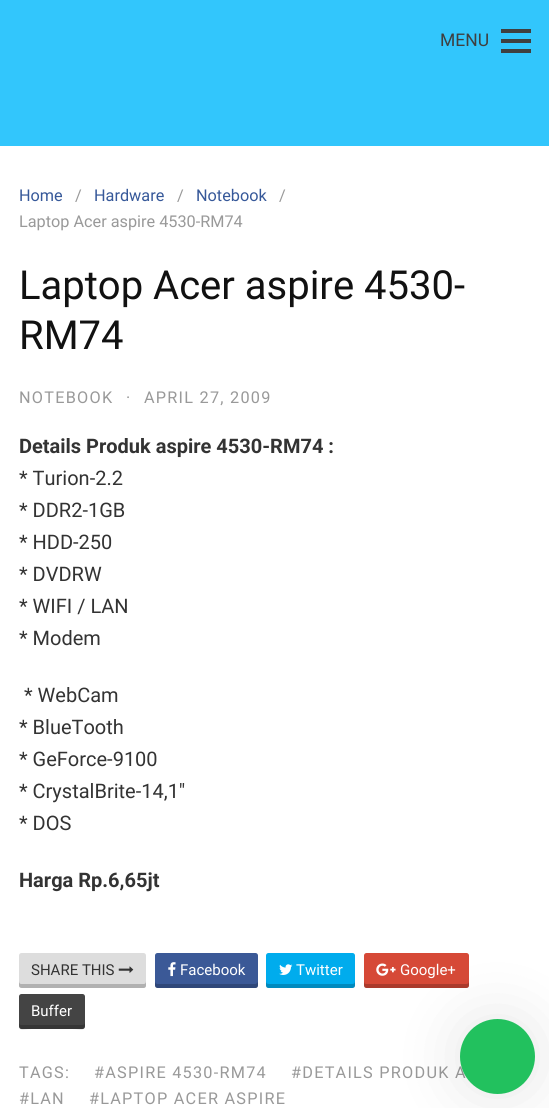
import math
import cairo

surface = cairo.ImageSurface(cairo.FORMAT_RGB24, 549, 1108)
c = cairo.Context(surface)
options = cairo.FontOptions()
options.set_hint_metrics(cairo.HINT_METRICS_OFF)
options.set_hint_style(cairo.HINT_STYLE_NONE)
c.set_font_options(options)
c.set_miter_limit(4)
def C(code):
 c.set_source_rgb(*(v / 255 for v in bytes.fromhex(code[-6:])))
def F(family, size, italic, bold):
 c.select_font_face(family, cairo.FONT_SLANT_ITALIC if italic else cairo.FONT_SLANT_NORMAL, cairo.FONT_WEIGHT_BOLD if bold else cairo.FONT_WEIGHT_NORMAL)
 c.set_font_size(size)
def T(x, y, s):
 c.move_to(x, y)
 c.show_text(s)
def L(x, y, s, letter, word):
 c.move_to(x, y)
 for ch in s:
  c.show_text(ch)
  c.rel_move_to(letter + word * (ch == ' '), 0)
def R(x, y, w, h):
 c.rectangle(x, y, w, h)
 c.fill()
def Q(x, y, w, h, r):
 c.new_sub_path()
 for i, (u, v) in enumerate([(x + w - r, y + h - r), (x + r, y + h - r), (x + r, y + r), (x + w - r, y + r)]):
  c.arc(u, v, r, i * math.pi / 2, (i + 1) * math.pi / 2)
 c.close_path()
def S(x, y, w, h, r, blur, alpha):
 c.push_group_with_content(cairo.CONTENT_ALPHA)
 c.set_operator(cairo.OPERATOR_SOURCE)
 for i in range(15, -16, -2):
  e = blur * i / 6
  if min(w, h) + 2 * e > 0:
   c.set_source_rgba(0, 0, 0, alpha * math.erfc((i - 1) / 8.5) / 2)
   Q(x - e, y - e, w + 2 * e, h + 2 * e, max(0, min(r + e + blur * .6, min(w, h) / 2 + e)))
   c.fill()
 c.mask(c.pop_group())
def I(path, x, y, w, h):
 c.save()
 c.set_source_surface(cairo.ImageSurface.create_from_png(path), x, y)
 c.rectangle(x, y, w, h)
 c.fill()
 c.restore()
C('ffffff')
c.paint()
C('32c6fc')
R(0,0,549,146)
F('Roboto',17.5,0,0)
C('3f3f3f')
T(440,46,'MENU')
R(501,29,30,4)
R(501,39,30,4)
R(501,49,30,4)
F('Roboto',16.25,0,0)
C('365899')
T(19,201,'Home')
C('999999')
T(75,201,'/')
C('365899')
T(94,201,'Hardware')
C('999999')
T(177,201,'/')
C('365899')
T(196,201,'Notebook')
C('999999')
T(279,201,'/')
T(19,227,'Laptop Acer aspire 4530-RM74')
F('Roboto',40,0,0)
C('111111')
T(19,299,'Laptop Acer aspire 4530-')
T(19,349,'RM74')
F('Roboto',16.25,0,0)
C('999999')
L(19,403,'NOTEBOOK',1.25,0)
L(126,403,'·',1.25,0)
L(144,403,'APRIL 27, 2009',1.25,0)
F('Roboto',20,0,1)
C('333333')
T(19,453,'Details Produk aspire 4530-RM74 :')
F('Roboto',20,0,0)
T(19,485,'* Turion-2.2')
T(19,517,'* DDR2-1GB')
T(19,549,'* HDD-250')
T(19,581,'* DVDRW')
T(19,613,'* WIFI / LAN')
T(19,645,'* Modem')
T(24,702,'* WebCam')
T(19,734,'* BlueTooth')
T(19,766,'* GeForce-9100')
T(19,798,'* CrystalBrite-14,1″')
T(19,830,'* DOS')
F('Roboto',20,0,1)
T(19,887,'Harga Rp.6,65jt')
C('dddddd')
Q(19,953,127,35,2.5)
c.fill()
c.set_source_rgba(0,0,0,0.2)
c.new_path()
c.move_to(19,981)
c.line_to(19,986)
c.curve_to(19,987,20,988,22,988)
c.line_to(144,988)
c.curve_to(145,988,146,987,146,986)
c.line_to(146,981)
c.curve_to(146,983,145,984,144,984)
c.line_to(21,984)
c.curve_to(20,984,19,983,19,981)
c.close_path()
c.fill()
F('Roboto',15,0,0)
C('333333')
T(31,975,'SHARE THIS')
I('1.png',118,966,16,7)
C('3b5997')
Q(155,953,103,35,2.5)
c.fill()
c.set_source_rgba(0,0,0,0.2)
c.new_path()
c.move_to(155,981)
c.line_to(155,986)
c.curve_to(155,987,156,988,158,988)
c.line_to(256,988)
c.curve_to(257,988,258,987,258,986)
c.line_to(258,981)
c.curve_to(258,983,256,984,255,984)
c.line_to(158,984)
c.curve_to(156,984,155,983,155,981)
c.close_path()
c.fill()
I('2.png',168,962,8,15)
C('ffffff')
T(180,975,'Facebook')
C('00aced')
Q(266,953,89,35,2.5)
c.fill()
c.set_source_rgba(0,0,0,0.2)
c.new_path()
c.move_to(266,981)
c.line_to(266,986)
c.curve_to(266,987,267,988,268,988)
c.line_to(352,988)
c.curve_to(354,988,355,987,355,986)
c.line_to(355,981)
c.curve_to(355,983,354,984,352,984)
c.line_to(269,984)
c.curve_to(267,984,266,983,266,981)
c.close_path()
c.fill()
I('3.png',279,964,14,11)
C('ffffff')
T(296,975,'Twitter')
C('d64937')
Q(364,953,105,35,2.5)
c.fill()
c.set_source_rgba(0,0,0,0.2)
c.new_path()
c.move_to(364,981)
c.line_to(364,986)
c.curve_to(364,987,365,988,366,988)
c.line_to(466,988)
c.curve_to(468,988,469,987,469,986)
c.line_to(469,981)
c.curve_to(469,983,468,984,466,984)
c.line_to(366,984)
c.curve_to(365,984,364,983,364,981)
c.close_path()
c.fill()
I('4.png',376,963,20,13)
C('ffffff')
T(400,975,'Google+')
C('444444')
Q(19,994,66,35,2.5)
c.fill()
c.set_source_rgba(0,0,0,0.2)
c.new_path()
c.move_to(19,1022)
c.curve_to(19,1032,20,1029,32,1029)
c.line_to(72,1029)
c.curve_to(84,1029,85,1032,85,1022)
c.curve_to(85,1024,84,1025,82,1025)
c.line_to(21,1025)
c.curve_to(20,1025,19,1024,19,1022)
c.close_path()
c.fill()
C('ffffff')
T(31,1016,'Buffer')
F('Roboto',16.25,0,0)
C('999999')
L(19,1078,'TAGS:',1.25,0)
L(94,1078,'#ASPIRE 4530-RM74',1.25,0)
L(291,1078,'#DETAILS PRODUK A',1.25,0)
L(19,1104,'#LAN',1.25,0)
L(89,1104,'#LAPTOP ACER ASPIRE',1.25,0)
C('000000')
S(460,1019,75,75,37.5,31,.1)
C('22c15e')
c.arc(497.5,1056.5,37.5,0,2 * math.pi)
c.fill()
surface.write_to_png('o.png')
